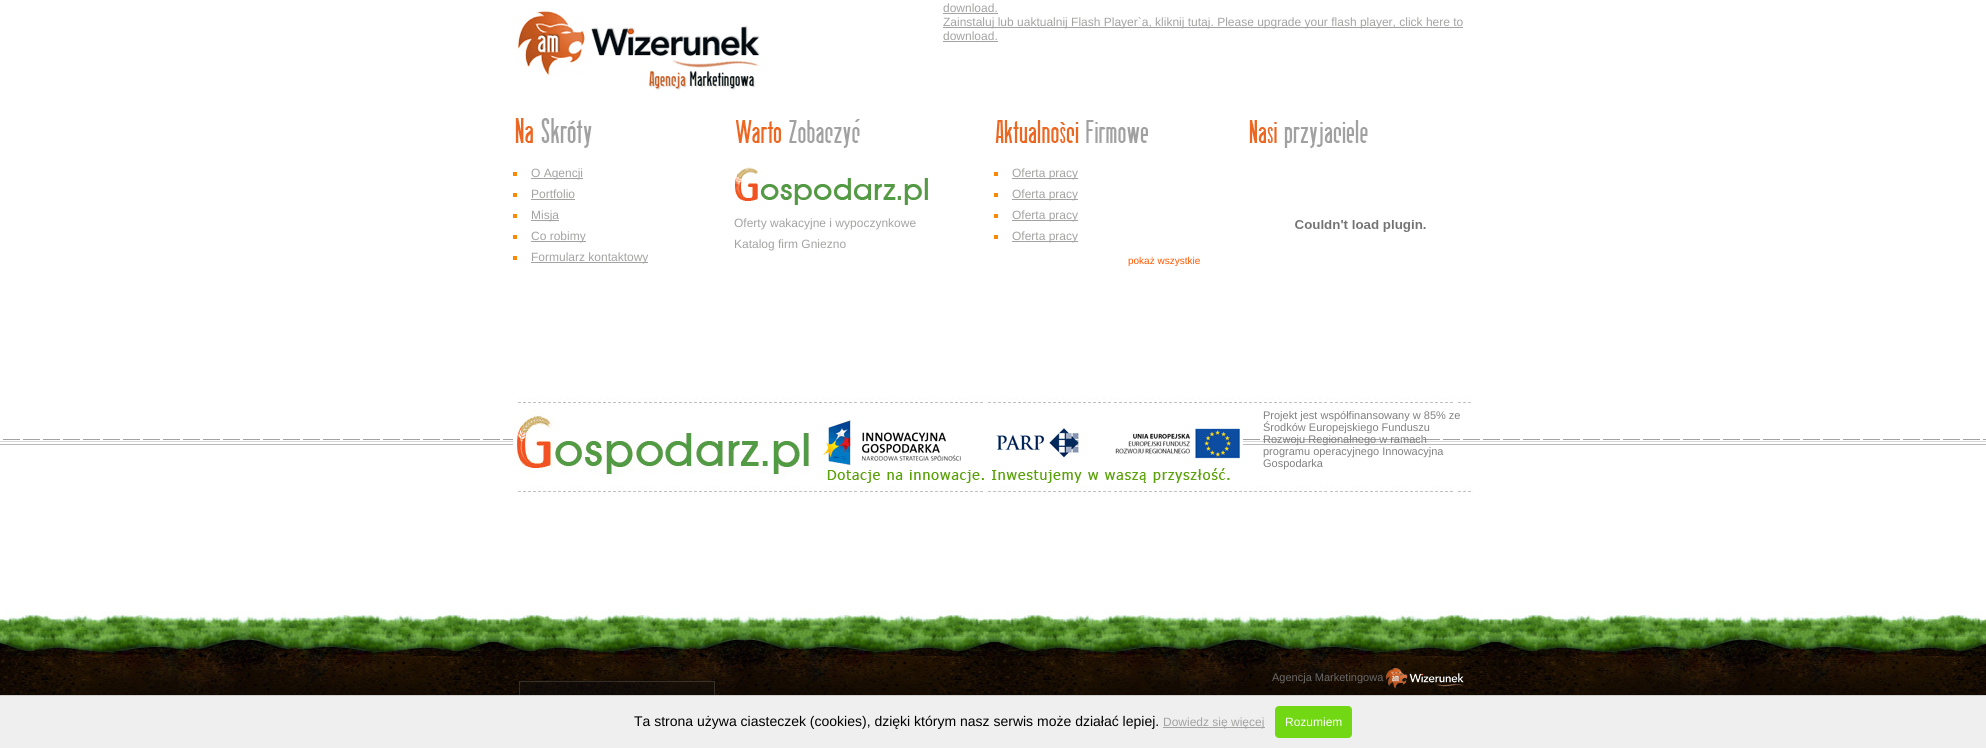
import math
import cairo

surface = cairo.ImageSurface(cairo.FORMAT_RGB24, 1986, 748)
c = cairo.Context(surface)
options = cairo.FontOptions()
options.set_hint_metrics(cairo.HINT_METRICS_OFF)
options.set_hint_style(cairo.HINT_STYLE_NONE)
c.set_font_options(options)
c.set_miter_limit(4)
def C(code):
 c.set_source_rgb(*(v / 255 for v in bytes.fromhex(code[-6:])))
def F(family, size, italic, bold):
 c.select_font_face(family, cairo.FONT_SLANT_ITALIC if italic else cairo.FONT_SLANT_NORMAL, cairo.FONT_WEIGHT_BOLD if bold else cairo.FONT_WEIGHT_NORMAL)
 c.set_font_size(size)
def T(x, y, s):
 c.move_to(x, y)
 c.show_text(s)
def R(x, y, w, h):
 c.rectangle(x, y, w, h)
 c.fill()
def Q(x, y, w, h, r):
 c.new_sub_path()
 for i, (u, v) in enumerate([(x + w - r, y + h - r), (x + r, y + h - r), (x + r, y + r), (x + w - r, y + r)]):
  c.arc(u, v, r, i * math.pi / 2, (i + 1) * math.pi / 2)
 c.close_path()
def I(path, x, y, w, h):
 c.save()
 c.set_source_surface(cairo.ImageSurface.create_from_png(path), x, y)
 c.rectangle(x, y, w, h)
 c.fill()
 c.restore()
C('ffffff')
c.paint()
I('1.png',0,439,1986,6)
F('Liberation Sans',12,0,0)
C('a3a3a2')
T(943,12,'download.')
R(943,13,55,1)
I('2.png',518,9,242,81)
R(943,27,520,1)
T(943,26,'Zainstaluj lub uaktualnij Flash Player`a, kliknij tutaj. Please upgrade your flash player, click here to')
T(943,40,'download.')
R(943,41,55,1)
I('3.png',515,118,77,30)
I('4.png',735,119,125,29)
I('5.png',995,120,153,23)
I('6.png',1249,120,119,28)
C('f98905')
R(513,172,4,4)
C('a3a3a2')
R(531,178,52,1)
T(531,177,'O Agencji')
C('f98905')
R(513,193,4,4)
C('a3a3a2')
T(531,198,'Portfolio')
R(531,199,44,1)
C('f98905')
R(513,214,4,4)
C('a3a3a2')
R(531,220,28,1)
T(531,219,'Misja')
C('f98905')
R(513,235,4,4)
C('a3a3a2')
R(531,241,55,1)
T(531,240,'Co robimy')
C('f98905')
R(513,256,4,4)
C('a3a3a2')
R(531,262,117,1)
T(531,261,'Formularz kontaktowy')
I('7.png',735,167,193,38)
T(734,227,'Oferty wakacyjne i wypoczynkowe')
T(734,248,'Katalog firm Gniezno')
C('f98905')
R(994,172,4,4)
C('a3a3a2')
R(1012,178,66,1)
T(1012,177,'Oferta pracy')
C('f98905')
R(994,193,4,4)
C('a3a3a2')
R(1012,199,66,1)
T(1012,198,'Oferta pracy')
C('f98905')
R(994,214,4,4)
C('a3a3a2')
R(1012,220,66,1)
T(1012,219,'Oferta pracy')
C('f98905')
R(994,235,4,4)
C('a3a3a2')
R(1012,241,66,1)
T(1012,240,'Oferta pracy')
F('Liberation Sans',10,0,0)
C('ff5800')
T(1128,264,'pokaż wszystkie')
I('8.png',1295,220,131,12)
I('9.png',517,397,956,7)
I('10.png',513,409,300,69)
I('11.png',813,420,430,63)
F('Liberation Sans',11,0,0)
C('808080')
T(1263,419,'Projekt jest współfinansowany w 85% ze')
T(1263,431,'Środków Europejskiego Funduszu')
T(1263,443,'Rozwoju Regionalnego w ramach')
T(1263,455,'programu operacyjnego Innowacyjna')
T(1263,467,'Gospodarka')
I('9.png',517,486,956,7)
I('12.png',0,611,1986,84)
C('696868')
T(1272,681,'Agencja Marketingowa')
I('13.png',1386,668,78,21)
I('14.png',519,681,196,14)
C('efefef')
R(0,696,1986,52)
C('d3d0d0')
R(0,695,1986,1)
F('Liberation Sans',14,0,0)
C('000000')
T(634,726,'Ta strona używa ciasteczek (cookies), dzięki którym nasz serwis może działać lepiej.')
C('a3a3a2')
R(1163,727,102,1)
F('Liberation Sans',12,0,0)
T(1163,726,'Dowiedz się więcej')
C('71d813')
Q(1275,706,77,32,4)
c.fill()
C('ffffff')
T(1285,726,'Rozumiem')
surface.write_to_png('o.png')
